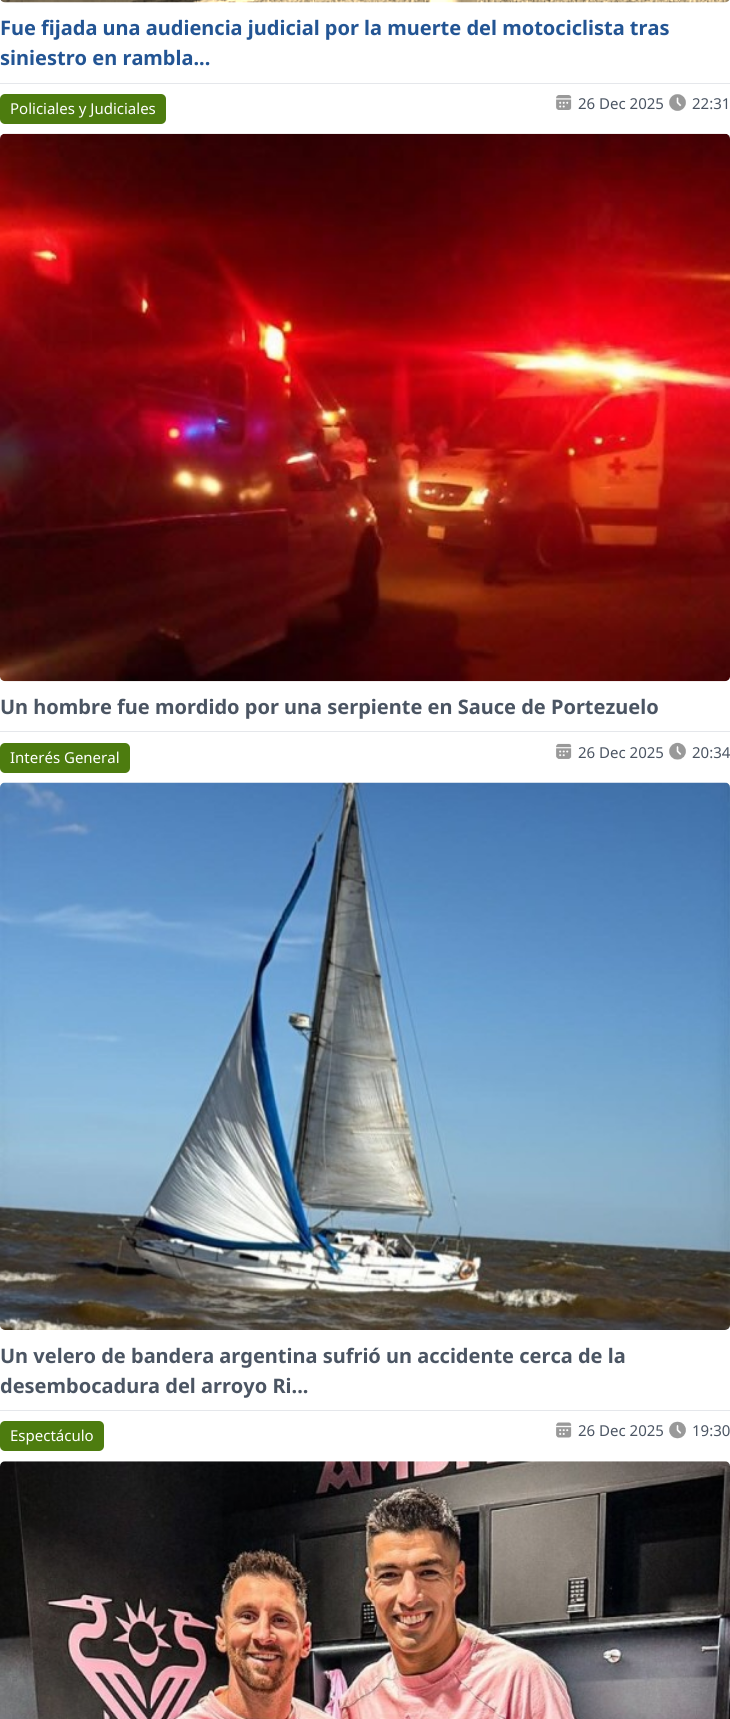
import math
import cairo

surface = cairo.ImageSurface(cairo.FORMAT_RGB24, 730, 1719)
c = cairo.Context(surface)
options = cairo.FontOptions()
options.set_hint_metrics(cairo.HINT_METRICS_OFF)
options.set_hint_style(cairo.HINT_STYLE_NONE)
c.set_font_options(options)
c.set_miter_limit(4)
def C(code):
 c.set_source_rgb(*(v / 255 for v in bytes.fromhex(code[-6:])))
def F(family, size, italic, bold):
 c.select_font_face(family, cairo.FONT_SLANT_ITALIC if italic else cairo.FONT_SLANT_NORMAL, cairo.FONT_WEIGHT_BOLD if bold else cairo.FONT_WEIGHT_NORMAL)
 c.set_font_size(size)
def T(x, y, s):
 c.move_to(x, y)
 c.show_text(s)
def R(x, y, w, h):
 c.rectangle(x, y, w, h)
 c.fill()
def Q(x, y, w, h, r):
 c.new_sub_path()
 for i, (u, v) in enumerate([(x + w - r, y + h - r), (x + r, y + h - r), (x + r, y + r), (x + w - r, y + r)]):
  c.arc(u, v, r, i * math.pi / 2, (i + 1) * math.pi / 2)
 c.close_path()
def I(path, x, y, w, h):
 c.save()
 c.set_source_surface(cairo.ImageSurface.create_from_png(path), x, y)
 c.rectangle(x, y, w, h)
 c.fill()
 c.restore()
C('ffffff')
c.paint()
C('e5e7eb')
R(0,83,730,1)
I('1.png',0,0,730,3)
F('Noto Sans',20,0,1)
C('235594')
T(0,35,'Fue fijada una audiencia judicial por la muerte del motociclista tras')
T(0,65,'siniestro en rambla...')
C('e5e7eb')
R(0,731,730,1)
C('4d7c0f')
Q(0,94,166,30,5)
c.fill()
F('Noto Sans',15,0,0)
C('ffffff')
T(10,114,'Policiales y Judiciales')
I('2.png',556,95,16,15)
C('4b5563')
T(578,109,'26 Dec 2025')
I('3.png',669,94,17,17)
T(692,109,'22:31')
I('4.png',0,133,730,549)
F('Noto Sans',20,0,1)
T(0,714,'Un hombre fue mordido por una serpiente en Sauce de Portezuelo')
C('e5e7eb')
R(0,1410,730,1)
C('4d7c0f')
Q(0,743,130,30,5)
c.fill()
F('Noto Sans',15,0,0)
C('ffffff')
T(10,763,'Interés General')
I('5.png',556,743,16,16)
C('4b5563')
T(578,758,'26 Dec 2025')
I('6.png',669,742,17,18)
T(692,758,'20:34')
I('7.png',0,782,730,548)
F('Noto Sans',20,0,1)
T(0,1363,'Un velero de bandera argentina sufrió un accidente cerca de la')
T(0,1393,'desembocadura del arroyo Ri...')
C('4d7c0f')
Q(0,1421,104,30,5)
c.fill()
F('Noto Sans',15,0,0)
C('ffffff')
T(10,1441,'Espectáculo')
I('8.png',556,1422,16,16)
C('4b5563')
T(578,1436,'26 Dec 2025')
I('9.png',669,1421,17,18)
T(692,1436,'19:30')
I('10.png',0,1461,730,258)
surface.write_to_png('o.png')
